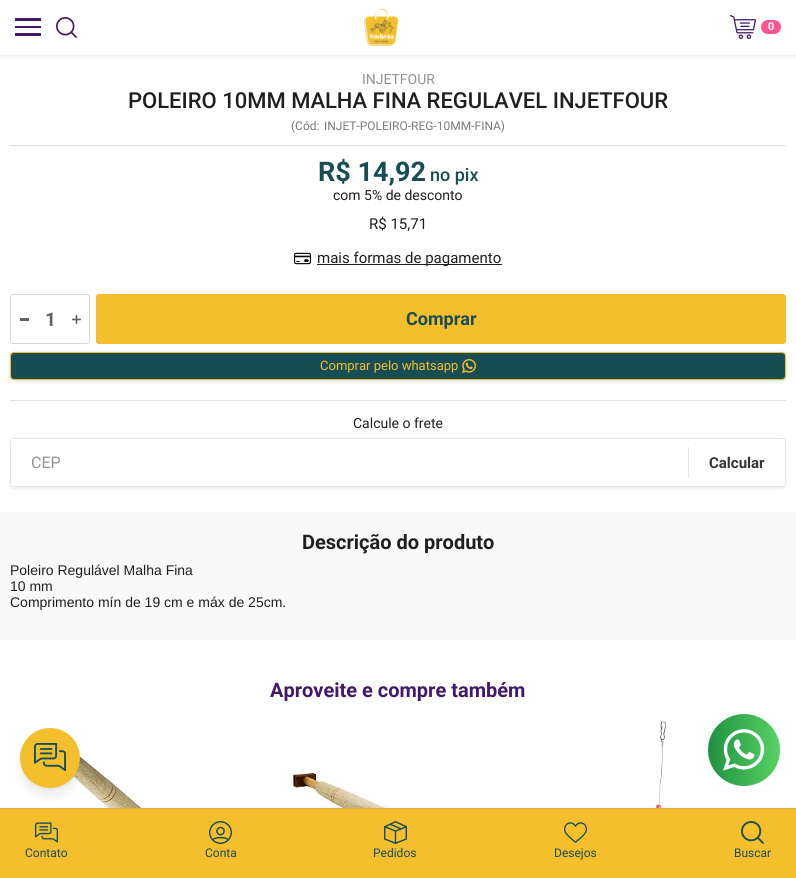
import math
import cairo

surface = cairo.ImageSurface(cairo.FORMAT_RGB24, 796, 878)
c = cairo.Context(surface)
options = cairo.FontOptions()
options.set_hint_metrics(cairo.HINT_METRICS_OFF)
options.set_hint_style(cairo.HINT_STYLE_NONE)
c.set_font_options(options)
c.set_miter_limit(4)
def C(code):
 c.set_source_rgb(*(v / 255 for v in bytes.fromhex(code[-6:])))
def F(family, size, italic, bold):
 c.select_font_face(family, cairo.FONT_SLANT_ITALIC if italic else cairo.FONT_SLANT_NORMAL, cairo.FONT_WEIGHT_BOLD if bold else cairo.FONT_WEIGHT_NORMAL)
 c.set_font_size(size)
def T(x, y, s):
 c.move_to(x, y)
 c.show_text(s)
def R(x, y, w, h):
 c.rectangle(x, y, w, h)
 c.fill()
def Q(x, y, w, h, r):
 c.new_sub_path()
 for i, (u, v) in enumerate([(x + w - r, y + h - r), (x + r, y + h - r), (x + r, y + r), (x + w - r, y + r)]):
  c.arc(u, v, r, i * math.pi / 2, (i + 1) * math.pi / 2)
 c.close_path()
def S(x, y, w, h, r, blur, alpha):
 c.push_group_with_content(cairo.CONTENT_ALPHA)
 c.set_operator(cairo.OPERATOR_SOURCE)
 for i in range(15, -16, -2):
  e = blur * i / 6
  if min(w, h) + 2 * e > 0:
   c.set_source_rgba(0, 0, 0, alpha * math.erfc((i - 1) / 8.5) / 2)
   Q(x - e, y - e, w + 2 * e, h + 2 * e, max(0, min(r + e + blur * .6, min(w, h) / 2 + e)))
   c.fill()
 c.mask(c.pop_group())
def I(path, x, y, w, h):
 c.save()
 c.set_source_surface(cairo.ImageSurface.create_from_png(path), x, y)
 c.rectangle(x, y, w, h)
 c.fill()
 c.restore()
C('ffffff')
c.paint()
C('525252')
S(0,1,796,55,0,2,.13)
C('ffffff')
R(0,0,796,54)
C('fcfcfc')
R(0,54,796,1)
C('441868')
R(15,33,26,3)
R(15,26,26,2)
R(15,18,26,3)
I('1.png',56,17,21,21)
I('2.png',364,8,35,38)
I('3.png',730,15,26,24)
C('ff558c')
Q(761,20,20,14,7)
c.fill()
F('Roboto',11,0,1)
C('ffffff')
T(768,30,'0')
C('e1e1e1')
R(10,145,776,1)
F('Roboto',14,0,0)
C('949494')
T(362,84,'INJETFOUR')
F('Roboto Medium',22,0,0)
C('201f1f')
T(128,108,'POLEIRO 10MM MALHA FINA REGULAVEL INJETFOUR')
F('Roboto',12,0,0)
C('7b7b7b')
T(291,130,'(Cód:')
T(324,130,'INJET-POLEIRO-REG-10MM-FINA)')
F('Roboto',27,0,1)
C('174e55')
T(318,181,'R$ 14,92')
F('Roboto Medium',18,0,0)
T(430,181,'no pix')
F('Roboto',14,0,0)
C('201f1f')
T(333,200,'com 5% de desconto')
F('Roboto',15,0,0)
T(369,229,'R$ 15,71')
I('4.png',294,252,17,13)
R(317,264,185,1)
T(317,263,'mais formas de pagamento')
Q(10.5,294.5,79,49,2.5)
C('d8d8d8')
c.set_line_width(1)
c.stroke()
C('616161')
R(20,318,9,3)
F('Roboto',19,0,1)
T(45,326,'1')
I('5.png',72,315,9,9)
C('f4be2d')
Q(96,294,690,50,3)
c.fill()
F('Roboto',18,0,1)
C('174e55')
T(406,325,'Comprar')
C('b1b1b1')
S(10,353,776,28,4,2,.46)
C('174e55')
Q(10.5,352.5,775,27,3.5)
c.fill_preserve()
C('f4be2d')
c.stroke()
F('Roboto',13,0,0)
T(320,370,'Comprar pelo whatsapp')
I('6.png',462,359,14,14)
C('e1e1e1')
R(10,400,776,1)
F('Roboto',14,0,0)
C('201f1f')
T(353,428,'Calcule o frete')
c.save()
c.set_fill_rule(cairo.FILL_RULE_EVEN_ODD)
c.new_path()
c.move_to(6,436)
c.line_to(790,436)
c.line_to(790,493)
c.line_to(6,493)
c.close_path()
c.move_to(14,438)
c.line_to(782,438)
c.curve_to(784,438,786,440,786,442)
c.line_to(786,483)
c.curve_to(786,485,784,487,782,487)
c.line_to(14,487)
c.curve_to(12,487,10,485,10,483)
c.line_to(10,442)
c.curve_to(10,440,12,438,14,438)
c.close_path()
c.clip()
C('cdcdcd')
S(10,440,776,49,4,1,.35)
c.restore()
Q(10.5,438.5,775,48,3.5)
C('e5e5e5')
c.stroke()
C('ffffff')
Q(11,439,677,47,3)
c.fill()
F('Roboto',16,0,0)
C('949494')
T(31,468,'CEP')
C('e5e5e5')
R(688,447,1,31)
F('Roboto',15,0,1)
C('333333')
T(709,468,'Calcular')
C('f9f9f9')
R(0,512,796,128)
F('Roboto',20,0,1)
C('201f1f')
T(302,549,'Descrição do produto')
F('Liberation Sans',14,0,0)
T(10,575,'Poleiro Regulável Malha Fina')
T(10,591,'10 mm')
T(10,607,'Comprimento mín de 19 cm e máx de 25cm.')
F('Roboto',20,0,1)
C('441868')
T(270,697,'Aproveite e compre também')
I('7.png',30,733,190,75)
I('8.png',291,772,215,36)
I('9.png',637,721,48,87)
C('676767')
S(20,738,60,60,30,4,.1)
C('000000')
S(20,730,60,60,30,.5,.04)
C('f4be2d')
c.arc(50,758,30,0,2 * math.pi)
c.fill()
I('10.png',34,743,32,28)
gradient = cairo.LinearGradient(708,750,780,750)
gradient.add_color_stop_rgba(0,0.125,0.569,0.259,1)
gradient.add_color_stop_rgba(1,0.337,0.824,0.388,1)
c.set_source(gradient)
c.arc(744,750,36,0,2 * math.pi)
c.fill()
I('11.png',723,729,42,42)
C('525252')
S(0,808,796,70,0,2,.08)
C('f4be2d')
R(0,809,796,69)
C('dab247')
R(0,808,796,1)
I('12.png',35,822,23,21)
F('Roboto',12,0,0)
C('174e55')
T(25,857,'Contato')
I('13.png',209,821,23,23)
T(205,857,'Conta')
I('14.png',384,821,23,23)
T(373,857,'Pedidos')
I('15.png',564,822,23,21)
T(554,857,'Desejos')
I('16.png',741,821,23,23)
T(734,857,'Buscar')
surface.write_to_png('o.png')
